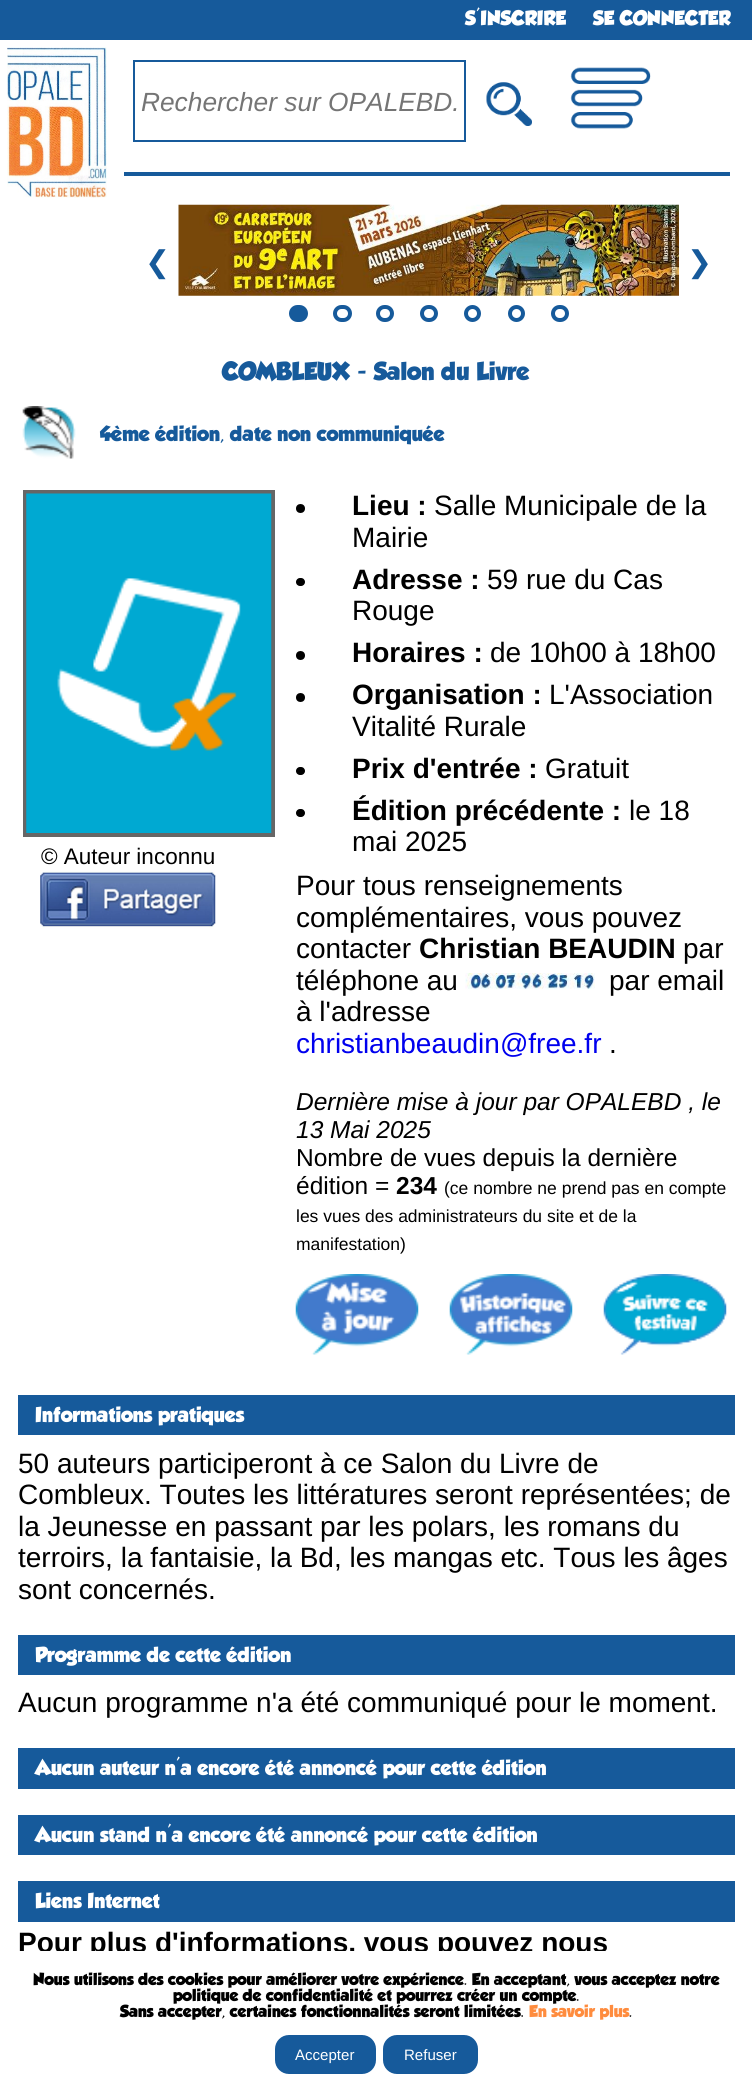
import math
import cairo

surface = cairo.ImageSurface(cairo.FORMAT_RGB24, 752, 2091)
c = cairo.Context(surface)
options = cairo.FontOptions()
options.set_hint_metrics(cairo.HINT_METRICS_OFF)
options.set_hint_style(cairo.HINT_STYLE_NONE)
c.set_font_options(options)
c.set_miter_limit(4)
def C(code):
 c.set_source_rgb(*(v / 255 for v in bytes.fromhex(code[-6:])))
def F(family, size, italic, bold):
 c.select_font_face(family, cairo.FONT_SLANT_ITALIC if italic else cairo.FONT_SLANT_NORMAL, cairo.FONT_WEIGHT_BOLD if bold else cairo.FONT_WEIGHT_NORMAL)
 c.set_font_size(size)
def T(x, y, s):
 c.move_to(x, y)
 c.show_text(s)
def R(x, y, w, h):
 c.rectangle(x, y, w, h)
 c.fill()
def Q(x, y, w, h, r):
 c.new_sub_path()
 for i, (u, v) in enumerate([(x + w - r, y + h - r), (x + r, y + h - r), (x + r, y + r), (x + w - r, y + r)]):
  c.arc(u, v, r, i * math.pi / 2, (i + 1) * math.pi / 2)
 c.close_path()
def I(path, x, y, w, h):
 c.save()
 c.set_source_surface(cairo.ImageSurface.create_from_png(path), x, y)
 c.rectangle(x, y, w, h)
 c.fill()
 c.restore()
C('ffffff')
c.paint()
C('165a9b')
R(0,0,752,40)
F('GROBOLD',18,0,1)
C('ffffff')
T(465,25,'S\'INSCRIRE')
T(593,25,'SE CONNECTER')
I('1.png',7,47,100,151)
c.rectangle(134,61,331,80)
C('165a9b')
c.stroke()
F('Liberation Sans',26.3,1,0)
C('757575')
T(141,111,'Rechercher sur OPALEBD.')
I('2.png',486,82,46,44)
I('3.png',570,67,81,62)
C('165a9b')
R(124,172,606,4)
F('DejaVu Sans',30,0,0)
T(145,272,'❮')
I('4.png',178,204,501,92)
T(687,272,'❯')
Q(291,307,15,13,6.5)
c.fill_preserve()
c.set_line_width(4)
c.stroke()
Q(335,307,15,13,6.5)
c.stroke()
Q(378,307,14,13,6.5)
c.stroke()
Q(422,307,14,13,6.5)
c.stroke()
c.arc(472.5,313.5,6.5,0,2 * math.pi)
c.stroke()
c.arc(516.5,313.5,6.5,0,2 * math.pi)
c.stroke()
Q(553,307,14,13,6.5)
c.stroke()
F('GROBOLD',22.5,0,1)
T(222,380,'COMBLEUX - Salon du Livre')
I('5.png',22,406,54,53)
F('GROBOLD',18.8,0,1)
T(100,441,'4ème édition, date non communiquée')
c.rectangle(25,492,248,343)
C('666666')
c.stroke()
I('6.png',26,493,246,340)
F('Liberation Sans',22.5,0,0)
C('000000')
T(41,864,'© Auteur inconnu')
I('7.png',40,870,176,59)
c.arc(300.5,508.5,4.5,0,2 * math.pi)
c.fill()
F('Liberation Sans',28,0,1)
T(352,515,'Lieu :')
F('Liberation Sans',28,0,0)
T(434,515,'Salle Municipale de la')
T(352,547,'Mairie')
Q(296,578,9,8,4)
c.fill()
F('Liberation Sans',28,0,1)
T(352,589,'Adresse :')
F('Liberation Sans',28,0,0)
T(487,589,'59 rue du Cas')
T(352,620,'Rouge')
c.new_path()
c.arc(300.5,655.5,4.5,0,2 * math.pi)
c.fill()
F('Liberation Sans',28,0,1)
T(352,662,'Horaires :')
F('Liberation Sans',28,0,0)
T(490,662,'de 10h00 à 18h00')
c.new_path()
c.arc(300.5,697.5,4.5,0,2 * math.pi)
c.fill()
F('Liberation Sans',28,0,1)
T(352,704,'Organisation :')
F('Liberation Sans',28,0,0)
T(549,704,'L\'Association')
T(352,736,'Vitalité Rurale')
Q(296,767,9,8,4)
c.fill()
F('Liberation Sans',28,0,1)
T(352,778,'Prix d\'entrée :')
F('Liberation Sans',28,0,0)
T(545,778,'Gratuit')
Q(296,809,9,8,4)
c.fill()
F('Liberation Sans',28,0,1)
T(352,820,'Édition précédente :')
F('Liberation Sans',28,0,0)
T(629,820,'le 18')
T(352,851,'mai 2025')
T(296,895,'Pour tous renseignements')
T(296,927,'complémentaires, vous pouvez')
T(296,958,'contacter')
F('Liberation Sans',28,0,1)
T(419,958,'Christian BEAUDIN')
F('Liberation Sans',28,0,0)
T(683,958,'par')
T(296,990,'téléphone au')
I('8.png',465,973,130,17)
T(609,990,'par email')
T(296,1021,'à l\'adresse')
C('0000ee')
T(296,1053,'christianbeaudin@free.fr')
C('000000')
T(609,1053,'.')
F('Liberation Sans',24.5,1,0)
T(296,1110,'Dernière mise à jour par OPALEBD , le')
T(296,1138,'13 Mai 2025')
F('Liberation Sans',24.5,0,0)
T(296,1166,'Nombre de vues depuis la dernière')
T(296,1194,'édition =')
F('Liberation Sans',24.5,0,1)
T(396,1194,'234')
F('Liberation Sans',17.5,0,0)
T(444,1194,'(ce nombre ne prend pas en compte')
T(296,1222,'les vues des administrateurs du site et de la')
T(296,1250,'manifestation)')
I('9.png',295,1274,124,81)
I('10.png',449,1274,124,81)
I('11.png',603,1274,124,81)
C('165a9b')
R(18,1395,717,40)
F('GROBOLD',18.8,0,1)
C('ffffff')
T(35,1422,'Informations pratiques')
F('Liberation Sans',28,0,0)
C('000000')
T(18,1473,'50 auteurs participeront à ce Salon du Livre de')
T(18,1504,'Combleux. Toutes les littératures seront représentées; de')
T(18,1536,'la Jeunesse en passant par les polars, les romans du')
T(18,1567,'terroirs, la fantaisie, la Bd, les mangas etc. Tous les âges')
T(18,1599,'sont concernés.')
C('165a9b')
R(18,1635,717,40)
F('GROBOLD',18.8,0,1)
C('ffffff')
T(35,1662,'Programme de cette édition')
F('Liberation Sans',28,0,0)
C('000000')
T(18,1712,'Aucun programme n\'a été communiqué pour le moment.')
C('165a9b')
R(18,1748,717,41)
F('GROBOLD',18.8,0,1)
C('ffffff')
T(35,1775,'Aucun auteur n\'a encore été annoncé pour cette édition')
C('165a9b')
R(18,1815,717,40)
C('ffffff')
T(35,1842,'Aucun stand n\'a encore été annoncé pour cette édition')
C('165a9b')
R(18,1881,717,41)
C('ffffff')
T(35,1908,'Liens Internet')
F('Liberation Sans',28,0,1)
C('000000')
T(18,1952,'Pour plus d\'informations, vous pouvez nous')
C('ffffff')
R(19,1951,586,7)
F('GROBOLD',15.05,0,1)
C('000000')
T(33,1985,'Nous utilisons des cookies pour améliorer votre expérience. En acceptant, vous acceptez notre')
T(173,2001,'politique de confidentialité et pourrez créer un compte.')
T(120,2017,'Sans accepter, certaines fonctionnalités seront limitées.')
C('ff8c3e')
T(529,2017,'En savoir plus')
C('000000')
T(629,2017,'.')
C('165a9b')
Q(277,2037,97,35,12)
c.fill_preserve()
c.stroke()
F('Liberation Sans',15.05,0,0)
C('ffffff')
T(295,2060,'Accepter')
C('165a9b')
Q(385,2037,91,35,12)
c.fill_preserve()
c.stroke()
C('ffffff')
T(404,2060,'Refuser')
surface.write_to_png('o.png')
